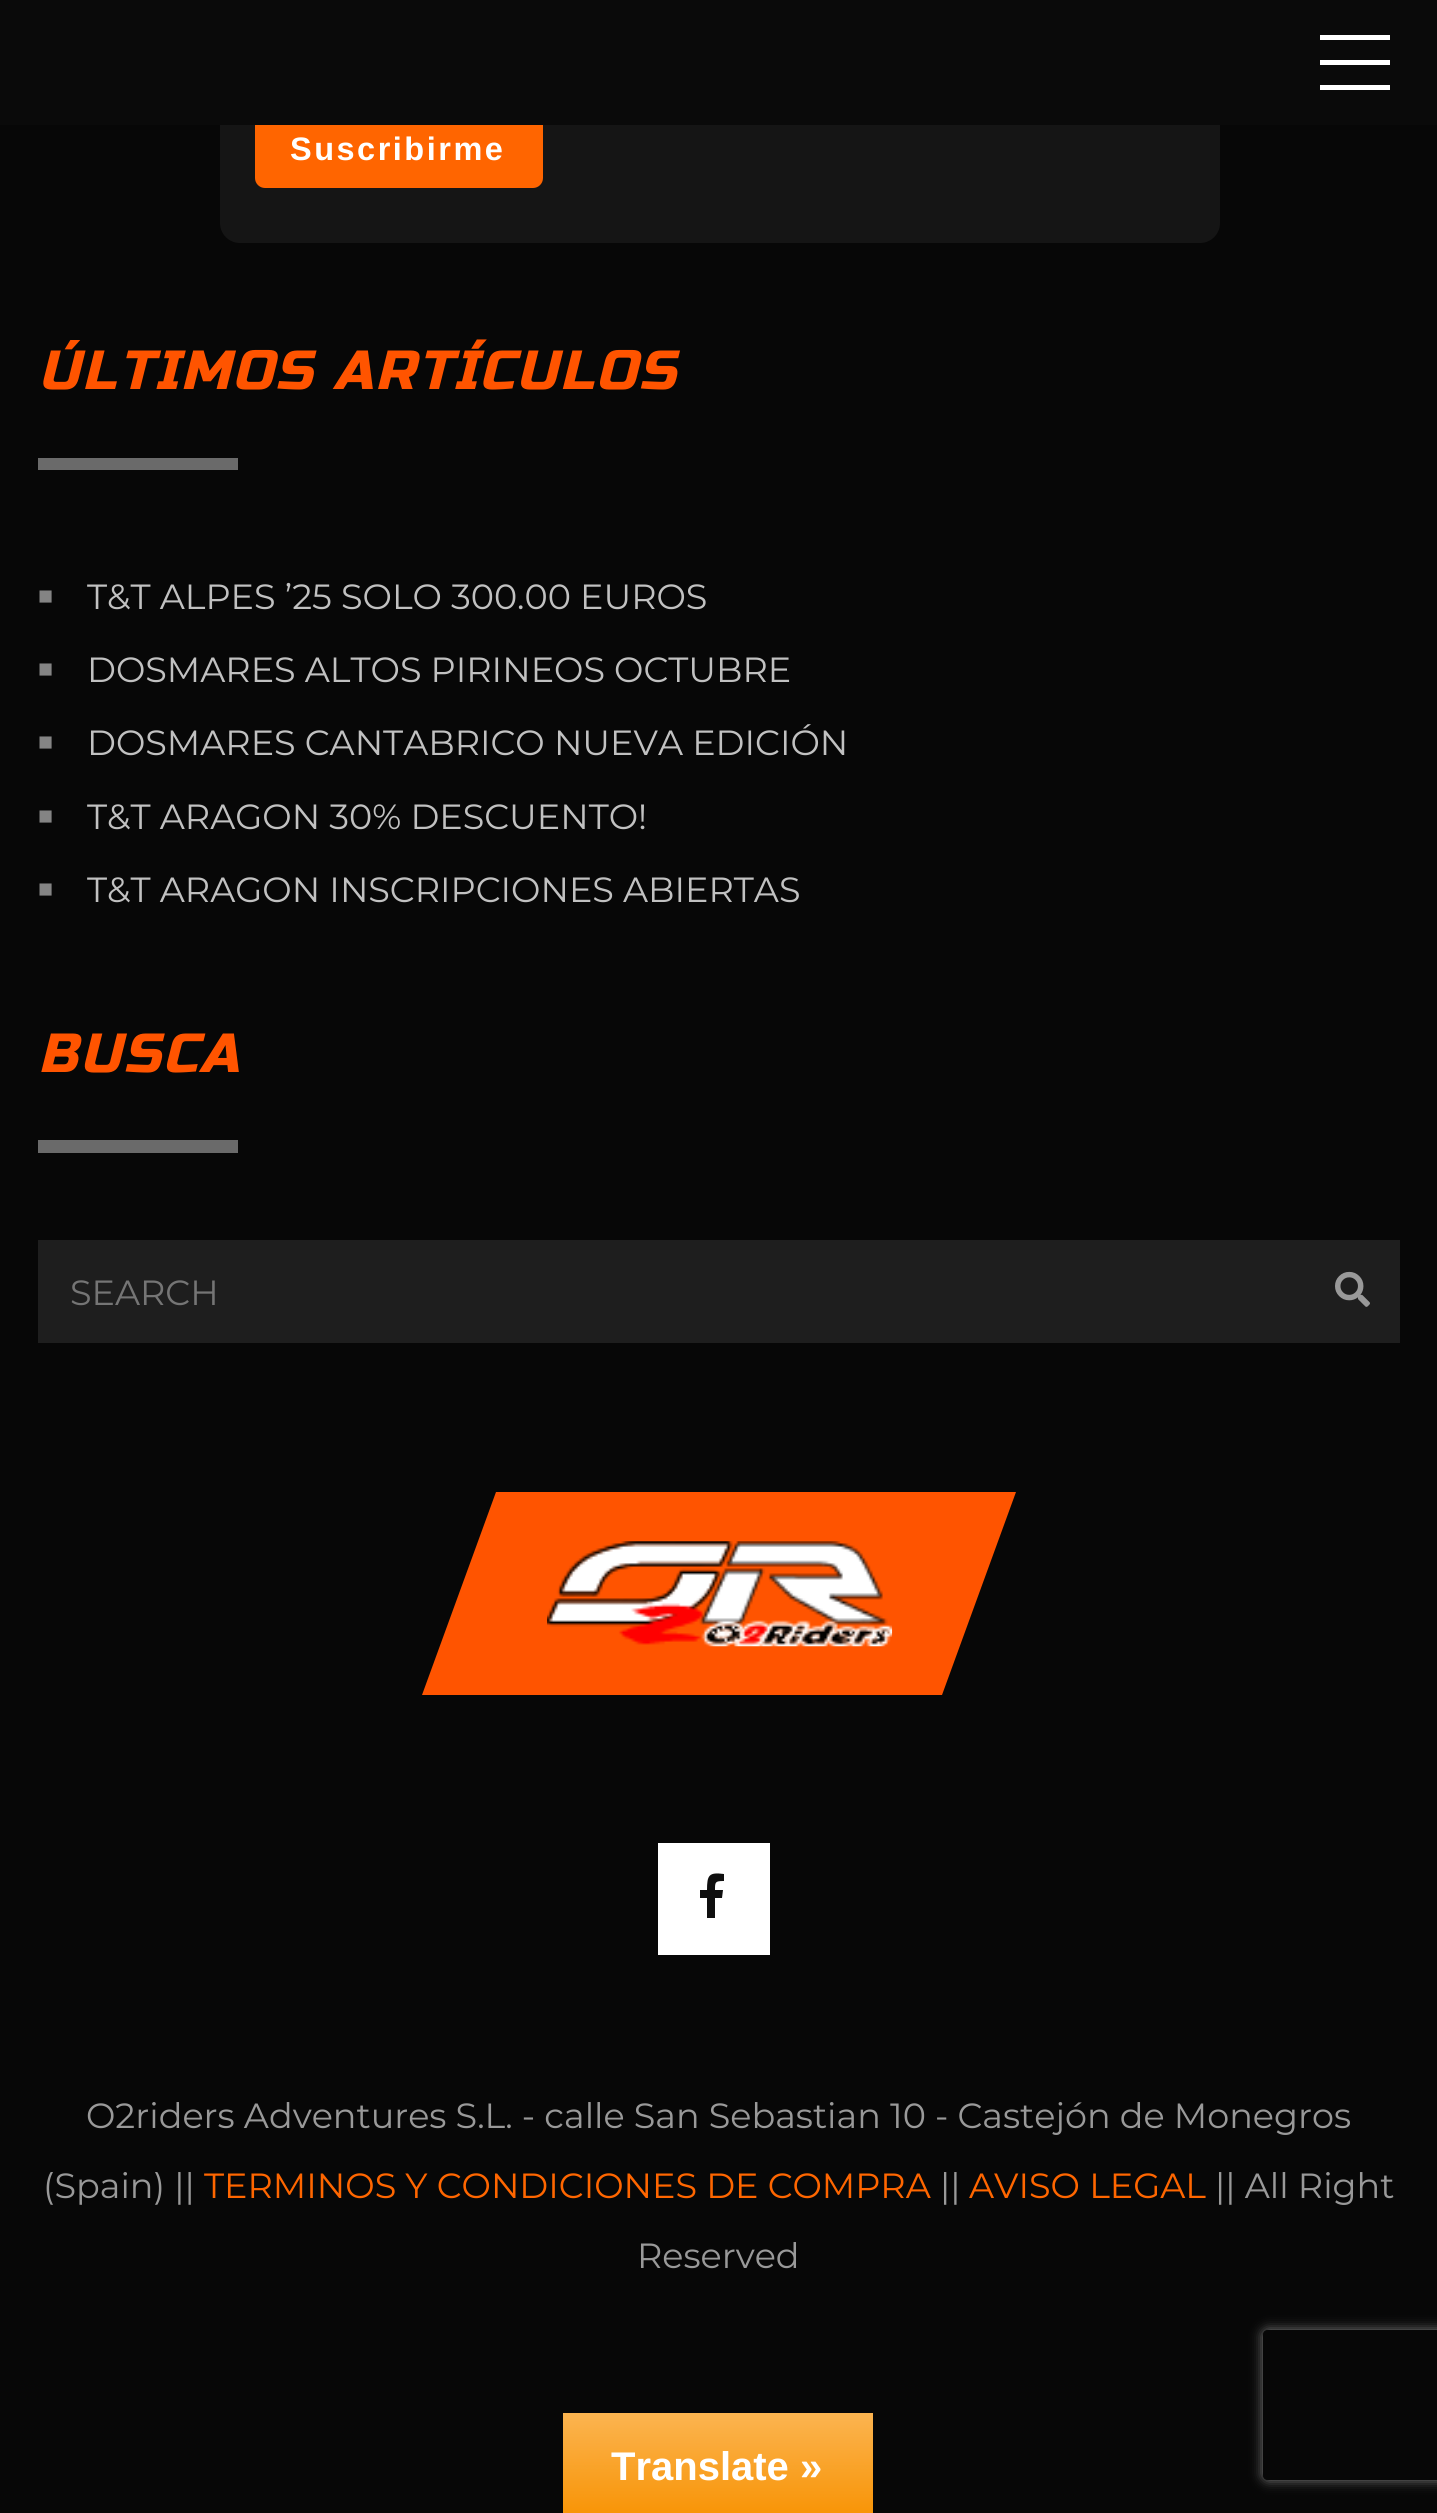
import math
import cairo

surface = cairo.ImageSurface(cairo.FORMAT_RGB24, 1437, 2513)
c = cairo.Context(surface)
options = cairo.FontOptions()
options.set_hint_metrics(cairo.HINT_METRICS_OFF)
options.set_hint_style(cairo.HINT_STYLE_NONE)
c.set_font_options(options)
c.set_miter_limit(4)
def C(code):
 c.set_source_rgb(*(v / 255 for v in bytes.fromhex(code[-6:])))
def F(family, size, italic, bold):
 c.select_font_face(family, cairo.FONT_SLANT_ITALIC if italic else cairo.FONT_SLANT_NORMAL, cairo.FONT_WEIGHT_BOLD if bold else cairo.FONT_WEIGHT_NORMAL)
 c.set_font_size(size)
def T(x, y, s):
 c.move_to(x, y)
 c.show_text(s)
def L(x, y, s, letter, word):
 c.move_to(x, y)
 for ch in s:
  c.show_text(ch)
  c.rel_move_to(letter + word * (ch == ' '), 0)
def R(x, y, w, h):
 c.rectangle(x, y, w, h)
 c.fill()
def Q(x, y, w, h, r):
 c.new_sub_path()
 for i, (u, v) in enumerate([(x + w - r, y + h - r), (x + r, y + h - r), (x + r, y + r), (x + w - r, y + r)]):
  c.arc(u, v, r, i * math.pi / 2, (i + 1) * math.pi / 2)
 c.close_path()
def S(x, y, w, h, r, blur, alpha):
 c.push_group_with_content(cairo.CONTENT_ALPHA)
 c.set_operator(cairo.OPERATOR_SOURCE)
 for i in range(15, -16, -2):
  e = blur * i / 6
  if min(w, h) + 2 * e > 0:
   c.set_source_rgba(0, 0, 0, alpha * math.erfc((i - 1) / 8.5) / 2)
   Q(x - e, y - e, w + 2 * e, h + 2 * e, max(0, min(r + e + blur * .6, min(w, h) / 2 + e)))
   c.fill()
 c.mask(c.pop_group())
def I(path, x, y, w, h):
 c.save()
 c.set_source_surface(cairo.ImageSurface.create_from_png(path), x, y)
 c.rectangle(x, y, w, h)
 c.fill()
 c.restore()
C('070707')
c.paint()
C('151515')
Q(220,-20,1000,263,20)
c.fill()
C('ff6500')
Q(255,115,288,73,10)
c.fill()
C('0a0a0a')
R(0,0,1437,125)
C('ffffff')
R(1320,35,70,5)
R(1320,85,70,5)
R(1320,60,70,5)
F('Liberation Sans',32.5,0,1)
L(290,160,'Suscribirme',2.5,0)
F('Russo One',55,1,0)
C('ff5400')
L(38,389,'ÚLTIMOS ARTÍCULOS',2.5,0)
C('6a6a6a')
R(38,458,200,12)
F('Liberation Sans',25,0,0)
C('848484')
T(38,604,'■')
F('Montserrat Thin',35,0,0)
C('c1c1c1')
T(87,609,'T&T ALPES ’25 SOLO 300.00 EUROS')
F('Liberation Sans',25,0,0)
C('848484')
T(38,677,'■')
F('Montserrat Thin',35,0,0)
C('c1c1c1')
T(87,682,'DOSMARES ALTOS PIRINEOS OCTUBRE')
F('Liberation Sans',25,0,0)
C('848484')
T(38,750,'■')
F('Montserrat Thin',35,0,0)
C('c1c1c1')
T(87,755,'DOSMARES CANTABRICO NUEVA EDICIÓN')
F('Liberation Sans',25,0,0)
C('848484')
T(38,824,'■')
F('Montserrat Thin',35,0,0)
C('c1c1c1')
T(87,829,'T&T ARAGON 30% DESCUENTO!')
F('Liberation Sans',25,0,0)
C('848484')
T(38,897,'■')
F('Montserrat Thin',35,0,0)
C('c1c1c1')
T(87,902,'T&T ARAGON INSCRIPCIONES ABIERTAS')
F('Russo One',55,1,0)
C('ff5400')
L(38,1072,'BUSCA',2.5,0)
C('6a6a6a')
R(38,1140,200,13)
C('1e1e1e')
R(38,1240,1362,103)
F('Montserrat Thin',35,0,0)
C('757575')
T(70,1305,'SEARCH')
I('1.png',1335,1271,35,36)
C('ff5400')
c.new_path()
c.move_to(496,1492)
c.line_to(1016,1492)
c.line_to(942,1695)
c.line_to(422,1695)
c.close_path()
c.fill()
I('2.png',547,1541,346,106)
C('ffffff')
R(658,1843,112,112)
C('0f0f0f')
c.new_path()
c.move_to(722,1898)
c.line_to(715,1898)
c.line_to(715,1918)
c.line_to(707,1918)
c.line_to(707,1898)
c.line_to(700,1898)
c.line_to(700,1890)
c.line_to(707,1890)
c.curve_to(707,1875,709,1872,724,1874)
c.line_to(724,1881)
c.curve_to(715,1881,715,1882,715,1890)
c.line_to(723,1890)
c.close_path()
c.fill()
C('999999')
T(86,2128,'O2riders Adventures S.L. - calle San Sebastian 10 - Castejón de Monegros')
T(43,2198,'(Spain) ||')
C('ff6600')
T(204,2198,'TERMINOS Y CONDICIONES DE COMPRA')
C('999999')
T(940,2198,'||')
C('ff6600')
T(969,2198,'AVISO LEGAL')
C('999999')
T(1215,2198,'|| All Right')
T(637,2268,'Reserved')
gradient = cairo.LinearGradient(718,2413,718,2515)
gradient.add_color_stop_rgba(0,0.984,0.706,0.314,1)
gradient.add_color_stop_rgba(1,0.973,0.58,0.024,1)
c.set_source(gradient)
R(563,2413,310,100)
F('Liberation Sans',40,0,1)
C('ffffff')
T(611,2480,'Translate »')
c.save()
c.set_fill_rule(cairo.FILL_RULE_EVEN_ODD)
c.new_path()
c.move_to(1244,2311)
c.line_to(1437,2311)
c.line_to(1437,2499)
c.line_to(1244,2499)
c.close_path()
c.move_to(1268,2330)
c.line_to(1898,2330)
c.curve_to(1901,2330,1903,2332,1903,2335)
c.line_to(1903,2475)
c.curve_to(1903,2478,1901,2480,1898,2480)
c.line_to(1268,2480)
c.curve_to(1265,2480,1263,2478,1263,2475)
c.line_to(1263,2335)
c.curve_to(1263,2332,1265,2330,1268,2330)
c.close_path()
c.clip()
C('808080')
S(1263,2330,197,150,5,6,1)
c.restore()
surface.write_to_png('o.png')
